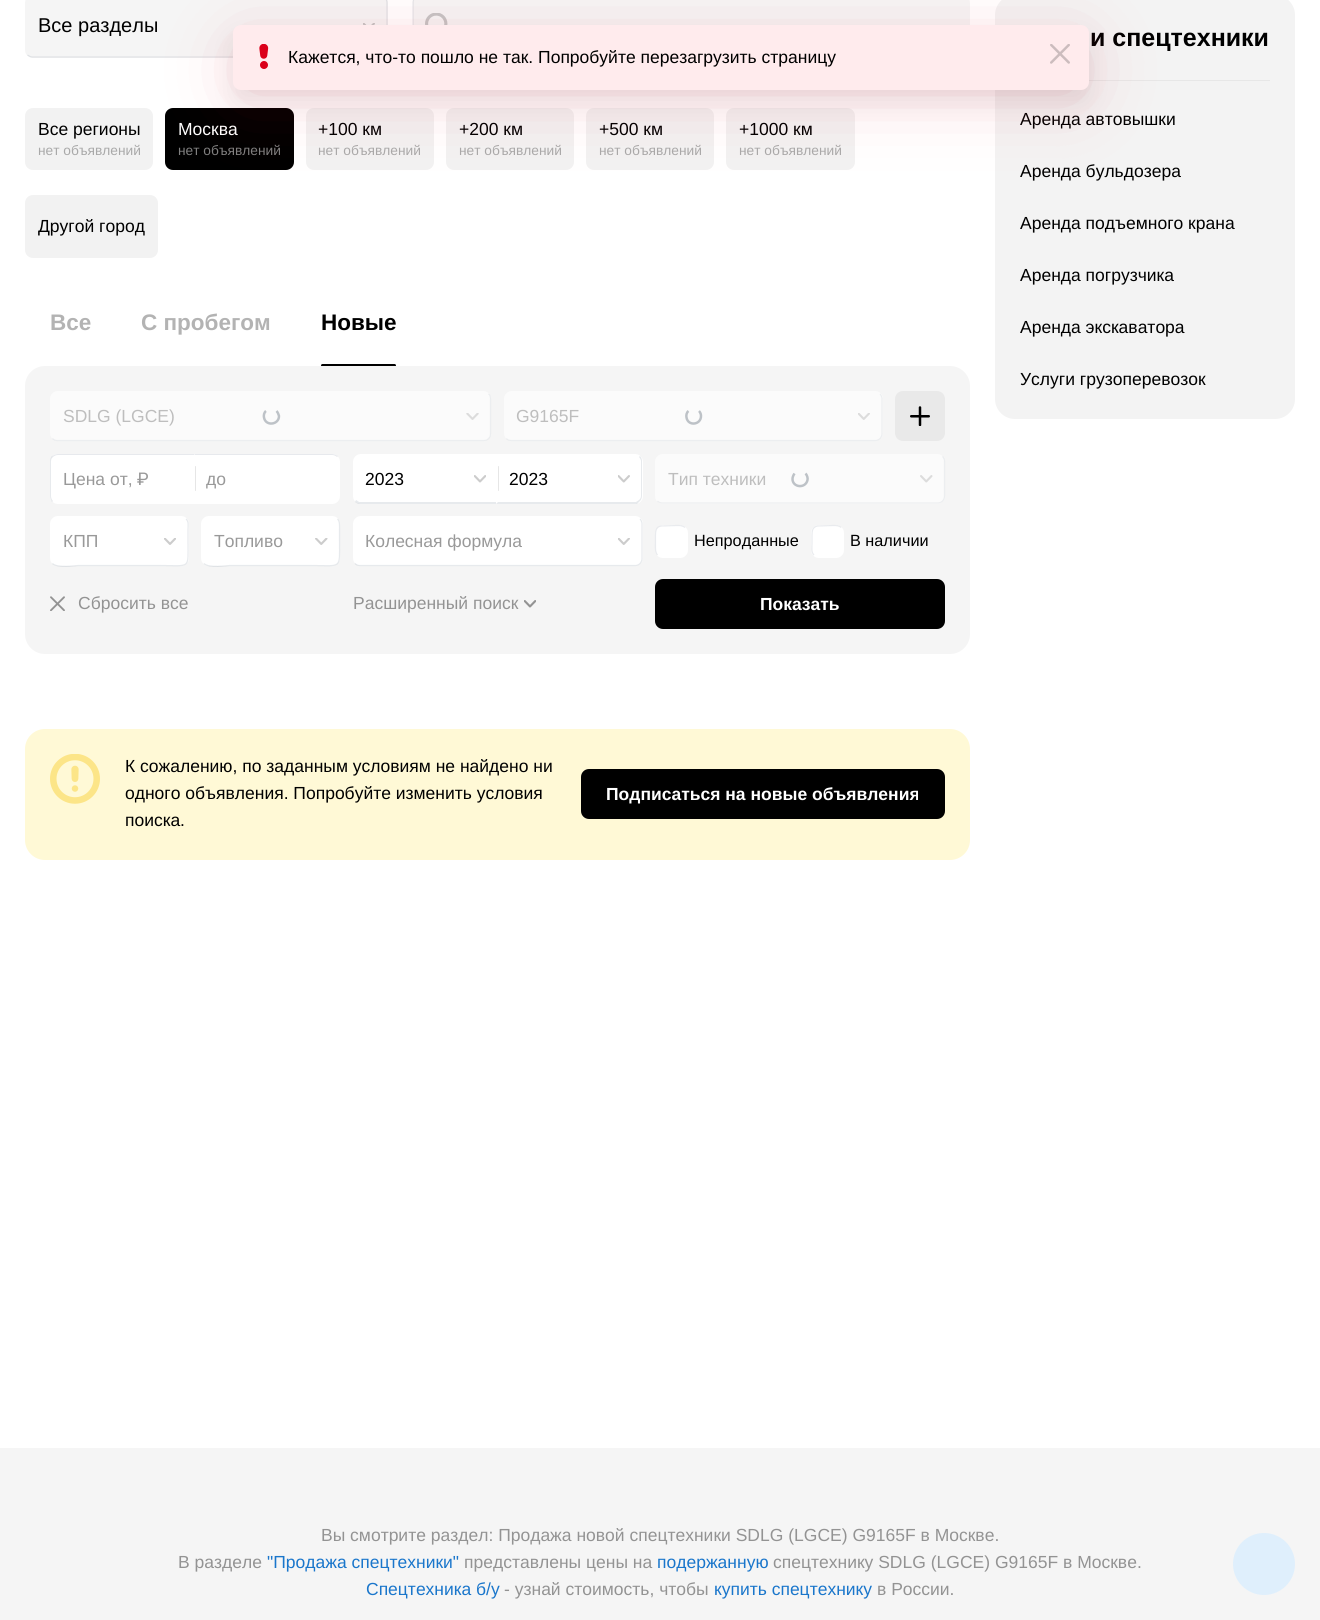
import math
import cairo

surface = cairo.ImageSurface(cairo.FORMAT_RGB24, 1320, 1620)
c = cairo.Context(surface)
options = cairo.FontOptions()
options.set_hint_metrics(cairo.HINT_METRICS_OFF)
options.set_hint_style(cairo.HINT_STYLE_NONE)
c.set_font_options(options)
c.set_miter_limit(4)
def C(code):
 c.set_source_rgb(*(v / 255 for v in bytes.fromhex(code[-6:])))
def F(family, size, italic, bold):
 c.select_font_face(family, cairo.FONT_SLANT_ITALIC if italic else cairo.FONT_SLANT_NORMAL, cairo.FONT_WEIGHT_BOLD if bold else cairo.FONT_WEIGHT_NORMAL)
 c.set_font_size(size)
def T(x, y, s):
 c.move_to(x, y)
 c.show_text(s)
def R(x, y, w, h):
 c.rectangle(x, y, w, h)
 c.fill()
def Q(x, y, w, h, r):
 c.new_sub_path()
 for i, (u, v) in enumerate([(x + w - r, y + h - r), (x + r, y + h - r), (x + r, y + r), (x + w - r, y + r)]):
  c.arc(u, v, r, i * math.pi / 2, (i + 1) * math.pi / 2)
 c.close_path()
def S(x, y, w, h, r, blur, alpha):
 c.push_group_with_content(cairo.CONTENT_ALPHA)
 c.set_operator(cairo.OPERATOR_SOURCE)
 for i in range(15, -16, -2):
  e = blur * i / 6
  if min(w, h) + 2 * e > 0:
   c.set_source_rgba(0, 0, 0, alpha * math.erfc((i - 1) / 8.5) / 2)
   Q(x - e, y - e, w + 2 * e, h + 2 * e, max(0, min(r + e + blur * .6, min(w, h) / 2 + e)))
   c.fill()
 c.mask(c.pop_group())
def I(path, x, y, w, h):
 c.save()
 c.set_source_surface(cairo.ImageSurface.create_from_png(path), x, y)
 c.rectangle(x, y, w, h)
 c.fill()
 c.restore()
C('ffffff')
c.paint()
C('f5f5f5')
Q(25,-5,363,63,8)
c.fill()
c.new_path()
c.move_to(385,-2.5)
c.curve_to(386,-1,387,.5,387,2.5)
c.line_to(387,50)
c.curve_to(387,52,386,53.5,385,55)
c.curve_to(383.5,56,382,57,380,57)
c.line_to(32.5,57)
c.curve_to(30.5,57,29,56,27.5,55)
c.set_source_rgba(0.067,0.157,0.294,0.1)
c.set_line_width(1.2)
c.stroke()
F('Liberation Sans',20,0,0)
C('000000')
T(38,32,'Все разделы')
I('1.png',363,23,12,2)
C('f5f5f5')
Q(413,-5,557,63,8)
c.fill()
c.new_path()
c.move_to(415,55)
c.curve_to(414,53.5,413,52,413,50)
c.line_to(413,2.5)
c.curve_to(413,.5,414,-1,415,-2.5)
c.curve_to(416.5,-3.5,418,-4.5,420,-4.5)
c.line_to(962.5,-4.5)
c.curve_to(964.5,-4.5,966,-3.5,967.5,-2.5)
c.set_source_rgba(0.067,0.157,0.294,0.1)
c.stroke()
I('2.png',425,13,23,12)
C('f2f2f2')
Q(25,108,128,62,8)
c.fill()
F('Liberation Sans',17.5,0,0)
C('000000')
T(38,135,'Все регионы')
F('Liberation Sans',13.75,0,0)
C('a9a9a9')
T(38,155,'нет объявлений')
C('000000')
Q(165,108,129,62,8)
c.fill()
F('Liberation Sans',17.5,0,0)
C('ffffff')
T(178,135,'Москва')
F('Liberation Sans',13.75,0,0)
C('808080')
T(178,155,'нет объявлений')
C('f2f2f2')
Q(306,108,128,62,8)
c.fill()
F('Liberation Sans',17.5,0,0)
C('000000')
T(318,135,'+100 км')
F('Liberation Sans',13.75,0,0)
C('a9a9a9')
T(318,155,'нет объявлений')
C('f2f2f2')
Q(446,108,128,62,8)
c.fill()
F('Liberation Sans',17.5,0,0)
C('000000')
T(459,135,'+200 км')
F('Liberation Sans',13.75,0,0)
C('a9a9a9')
T(459,155,'нет объявлений')
C('f2f2f2')
Q(586,108,128,62,8)
c.fill()
F('Liberation Sans',17.5,0,0)
C('000000')
T(599,135,'+500 км')
F('Liberation Sans',13.75,0,0)
C('a9a9a9')
T(599,155,'нет объявлений')
C('f2f2f2')
Q(726,108,129,62,8)
c.fill()
F('Liberation Sans',17.5,0,0)
C('000000')
T(739,135,'+1000 км')
F('Liberation Sans',13.75,0,0)
C('a9a9a9')
T(739,155,'нет объявлений')
C('f2f2f2')
Q(25,195,133,63,8)
c.fill()
F('Liberation Sans',17.5,0,0)
C('000000')
T(38,232,'Другой город')
F('Liberation Sans',22.5,0,1)
C('b3b3b3')
T(50,330,'Все')
T(141,330,'С пробегом')
C('000000')
T(321,330,'Новые')
C('f5f5f5')
Q(25,366,945,288,20)
c.fill()
c.save()
c.rectangle(50,308,920,58)
c.clip()
C('000000')
Q(321,364,75,3,1.5)
c.fill()
c.restore()
C('fbfbfb')
Q(50,391,441,50,8)
c.fill()
c.new_path()
c.move_to(488.5,394)
c.curve_to(490,395,490.5,397,490.5,399)
c.line_to(490.5,434)
c.curve_to(490.5,435.5,490,437.5,488.5,438.5)
c.curve_to(487.5,440,485.5,440.5,484,440.5)
c.line_to(57.5,440.5)
c.curve_to(55.5,440.5,54,440,52.5,438.5)
c.set_source_rgba(0.424,0.478,0.561,0.1)
c.stroke()
F('Liberation Sans',17.5,0,0)
C('bebebe')
T(63,422,'SDLG (LGCE)')
I('3.png',466,413,13,7)
c.new_path()
c.move_to(276.5,411)
c.curve_to(278,412.5,278.5,414.5,279,416)
c.curve_to(279,425,265.5,426.5,264,417.5)
c.curve_to(263.5,415.5,264,412.5,266,411)
C('bdc2c7')
c.set_line_width(2.5)
c.stroke()
C('fbfbfb')
Q(504,391,379,50,8)
c.fill()
c.new_path()
c.move_to(880,394)
c.curve_to(881,395,882,397,882,399)
c.line_to(882,434)
c.curve_to(882,435.5,881,437.5,880,438.5)
c.curve_to(878.5,440,877,440.5,875,440.5)
c.line_to(511,440.5)
c.curve_to(509.5,440.5,507.5,440,506.5,438.5)
c.set_source_rgba(0.424,0.478,0.561,0.1)
c.set_line_width(1.2)
c.stroke()
C('bebebe')
T(516,422,'G9165F')
I('4.png',858,413,12,7)
c.new_path()
c.move_to(699,411)
c.curve_to(700.5,412.5,701,414.5,701,416)
c.curve_to(701,425,688,426.5,686.5,417.5)
c.curve_to(686,415.5,686.5,412.5,688.5,411)
C('bdc2c7')
c.set_line_width(2.5)
c.stroke()
C('e9e9e9')
Q(895,391,50,50,8)
c.fill()
I('5.png',910,406,20,20)
C('ffffff')
c.new_path()
c.move_to(58,454)
c.line_to(196,454)
c.line_to(196,504)
c.line_to(58,504)
c.curve_to(53.5,504,50,500.5,50,496)
c.line_to(50,462)
c.curve_to(50,457.5,53.5,454,58,454)
c.close_path()
c.fill()
C('e7e9ed')
c.new_path()
c.move_to(58,454)
c.curve_to(56,454,54,455,52,456)
c.line_to(53,457)
c.curve_to(54,456,56,455,58,455)
c.line_to(195,455)
c.line_to(196,454)
c.close_path()
c.fill()
c.set_source_rgba(0.067,0.157,0.294,0.1)
c.new_path()
c.move_to(50,461)
c.line_to(50,496)
c.curve_to(50,498,51,500,52,502)
c.line_to(53,501)
c.curve_to(52,500,51,498,51,496)
c.line_to(51,461)
c.curve_to(51,459,52,458,53,457)
c.line_to(52,456)
c.curve_to(51,457,50,459,50,461)
c.close_path()
c.fill()
C('999999')
T(63,485,'Цена от,')
F('Roboto',17.5,0,0)
T(137,485,'₽')
C('ffffff')
c.new_path()
c.move_to(194,454)
c.line_to(332,454)
c.curve_to(336.5,454,340,457.5,340,462)
c.line_to(340,496)
c.curve_to(340,500.5,336.5,504,332,504)
c.line_to(194,504)
c.close_path()
c.fill()
C('e6e6e6')
Q(195,466,1,25,.5)
c.fill()
C('e7e9ed')
c.new_path()
c.move_to(194,454)
c.line_to(195,455)
c.line_to(332,455)
c.curve_to(334,455,336,456,337,457)
c.line_to(338,456)
c.curve_to(336,455,334,454,332,454)
c.close_path()
c.fill()
F('Liberation Sans',17.5,0,0)
C('999999')
T(206,485,'до')
C('ffffff')
c.new_path()
c.move_to(361,454)
c.line_to(499,454)
c.line_to(499,504)
c.line_to(361,504)
c.curve_to(356.5,504,353,500.5,353,496)
c.line_to(353,462)
c.curve_to(353,457.5,356.5,454,361,454)
c.close_path()
c.fill()
c.set_source_rgba(0.067,0.157,0.294,0.1)
c.new_path()
c.move_to(499,504)
c.line_to(358,504)
c.line_to(355,502)
c.line_to(356,500)
c.line_to(359,502)
c.line_to(497,502)
c.close_path()
c.fill()
C('000000')
T(365,485,'2023')
I('6.png',474,475,12,8)
C('ffffff')
c.new_path()
c.move_to(496,454)
c.line_to(635,454)
c.curve_to(639.5,454,643,457.5,643,462)
c.line_to(643,496)
c.curve_to(643,500.5,639.5,504,635,504)
c.line_to(496,504)
c.close_path()
c.fill()
C('e6e6e6')
Q(498,466,1,25,.5)
c.fill()
C('e7eaed')
c.new_path()
c.move_to(640,456)
c.curve_to(641,457,642,459,642,461)
c.line_to(642,496)
c.curve_to(642,498,641,500,640,501)
c.line_to(639,500)
c.curve_to(640,499,641,498,641,496)
c.line_to(641,461)
c.curve_to(641,460,640,458,639,457)
c.close_path()
c.fill()
c.set_source_rgba(0.067,0.157,0.294,0.1)
c.new_path()
c.move_to(640,501)
c.line_to(637,504)
c.line_to(496,504)
c.line_to(498,502)
c.line_to(636,502)
c.line_to(639,500)
c.close_path()
c.fill()
C('000000')
T(509,485,'2023')
I('7.png',618,475,12,8)
C('fbfbfb')
Q(655,454,290,50,8)
c.fill()
c.new_path()
c.move_to(942.5,456.5)
c.curve_to(943.5,457.5,944.5,459.5,944.5,461)
c.line_to(944.5,496)
c.curve_to(944.5,498,943.5,500,942.5,501)
c.curve_to(941,502.5,939.5,503,937.5,503)
c.line_to(662.5,503)
c.curve_to(660.5,503,659,502.5,657.5,501)
c.set_source_rgba(0.424,0.478,0.561,0.1)
c.set_line_width(1.2)
c.stroke()
C('bebebe')
T(668,485,'Тип техники')
I('8.png',920,475,13,8)
c.new_path()
c.move_to(805.5,473.5)
c.curve_to(807,475,808,478,807.5,480)
c.curve_to(805.5,489,792.5,487.5,792.5,479)
c.curve_to(792.5,477,793.5,475,794.5,473.5)
C('bdc2c7')
c.set_line_width(2.5)
c.stroke()
C('ffffff')
Q(50,516,139,50,8)
c.fill()
c.new_path()
c.move_to(186,519)
c.curve_to(189,521.5,188,526,188,529.5)
c.line_to(188,541)
c.curve_to(188,569.5,191,565.5,160.5,565.5)
c.line_to(78,565.5)
c.curve_to(76,565.5,57.5,568.5,52.5,563.5)
c.set_source_rgba(0.067,0.157,0.294,0.1)
c.set_line_width(1.2)
c.stroke()
C('999999')
T(63,547,'КПП')
I('9.png',164,538,12,7)
C('ffffff')
Q(201,516,139,50,8)
c.fill()
c.new_path()
c.move_to(337.5,519)
c.curve_to(340,521.5,339.5,526,339.5,529.5)
c.line_to(339.5,541)
c.curve_to(339.5,569.5,342,565.5,312,565.5)
c.line_to(229.5,565.5)
c.curve_to(227.5,565.5,209,568.5,204,563.5)
c.set_source_rgba(0.067,0.157,0.294,0.1)
c.stroke()
C('999999')
T(214,547,'Топливо')
I('10.png',315,538,13,7)
C('ffffff')
Q(353,516,290,50,8)
c.fill()
c.new_path()
c.move_to(640,519)
c.curve_to(641,520,642,522,642,524)
c.line_to(642,559)
c.curve_to(642,560.5,641,562.5,640,563.5)
c.curve_to(638.5,565,637,565.5,635,565.5)
c.line_to(360,565.5)
c.curve_to(358,565.5,356.5,565,355,563.5)
c.set_source_rgba(0.067,0.157,0.294,0.1)
c.stroke()
C('999999')
T(365,547,'Колесная формула')
I('11.png',618,538,12,7)
C('ffffff')
Q(655,525,33,33,8)
c.fill()
c.new_path()
c.move_to(657.5,555)
c.curve_to(655,552,655.5,548,655.5,544)
c.line_to(655.5,535.5)
c.curve_to(655.5,531,656,527,661,526)
c.line_to(677,525.5)
c.curve_to(680,525.5,682.5,525.5,685,527.5)
c.set_source_rgba(0.067,0.157,0.294,0.09)
c.stroke()
F('Liberation Sans',16.25,0,0)
C('000000')
T(694,546,'Непроданные')
C('ffffff')
Q(811,525,33,33,8)
c.fill()
c.new_path()
c.move_to(814,555)
c.curve_to(811,552,812,548,812,544)
c.line_to(812,535.5)
c.curve_to(812,531,812.5,527,817.5,526)
c.line_to(833.5,525.5)
c.curve_to(836,525.5,839,525.5,841,527.5)
c.set_source_rgba(0.067,0.157,0.294,0.09)
c.stroke()
C('000000')
T(850,546,'В наличии')
I('12.png',50,596,15,15)
F('Liberation Sans',17.5,0,0)
C('939393')
T(78,609,'Сбросить все')
T(353,609,'Расширенный поиск')
I('13.png',524,600,12,8)
C('000000')
Q(655,579,290,50,8)
c.fill()
F('Liberation Sans',17.5,0,1)
C('ffffff')
T(760,610,'Показать')
C('fff9d6')
Q(25,729,945,131,20)
c.fill()
I('14.png',50,754,50,50)
F('Liberation Sans',17.5,0,0)
C('000000')
T(125,772,'К сожалению, по заданным условиям не найдено ни')
T(125,799,'одного объявления. Попробуйте изменить условия')
T(125,826,'поиска.')
Q(581,769,364,50,8)
c.fill()
F('Liberation Sans',17.5,0,1)
C('ffffff')
T(606,800,'Подписаться на новые объявления')
C('f3f3f3')
Q(995,-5,300,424,20)
c.fill()
C('e7e7e7')
R(1089,80,181,1)
F('Liberation Sans',25,0,1)
C('000000')
T(1090,46,'и спецтехники')
F('Liberation Sans',17.5,0,0)
T(1020,125,'Аренда автовышки')
T(1020,177,'Аренда бульдозера')
T(1020,229,'Аренда подъемного крана')
T(1020,281,'Аренда погрузчика')
T(1020,333,'Аренда экскаватора')
T(1020,385,'Услуги грузоперевозок')
C('f5f5f5')
R(0,1448,1320,172)
C('dfeffc')
c.new_path()
c.arc(1264,1564,31,0,2 * math.pi)
c.fill()
C('e0001c')
S(245,50,831,40,0,37.5,.2)
C('000000')
S(233,38,856,65,8,12.5,.07)
C('ffebed')
Q(233,25,856,65,8)
c.fill()
I('15.png',259,44,10,25)
C('000000')
T(288,63,'Кажется, что-то пошло не так. Попробуйте перезагрузить страницу')
I('16.png',1050,44,20,20)
C('939393')
T(321,1541,'Вы смотрите раздел: Продажа новой спецтехники SDLG (LGCE) G9165F в Москве.')
T(178,1568,'В разделе')
C('1a76cb')
T(267,1568,'"Продажа спецтехники"')
C('939393')
T(464,1568,'представлены цены на')
C('1a76cb')
T(657,1568,'подержанную')
C('939393')
T(773,1568,'спецтехнику SDLG (LGCE) G9165F в Москве.')
C('1a76cb')
T(366,1595,'Спецтехника б/у')
C('939393')
T(504,1595,'- узнай стоимость, чтобы')
C('1a76cb')
T(714,1595,'купить спецтехнику')
C('939393')
T(877,1595,'в России.')
surface.write_to_png('o.png')
